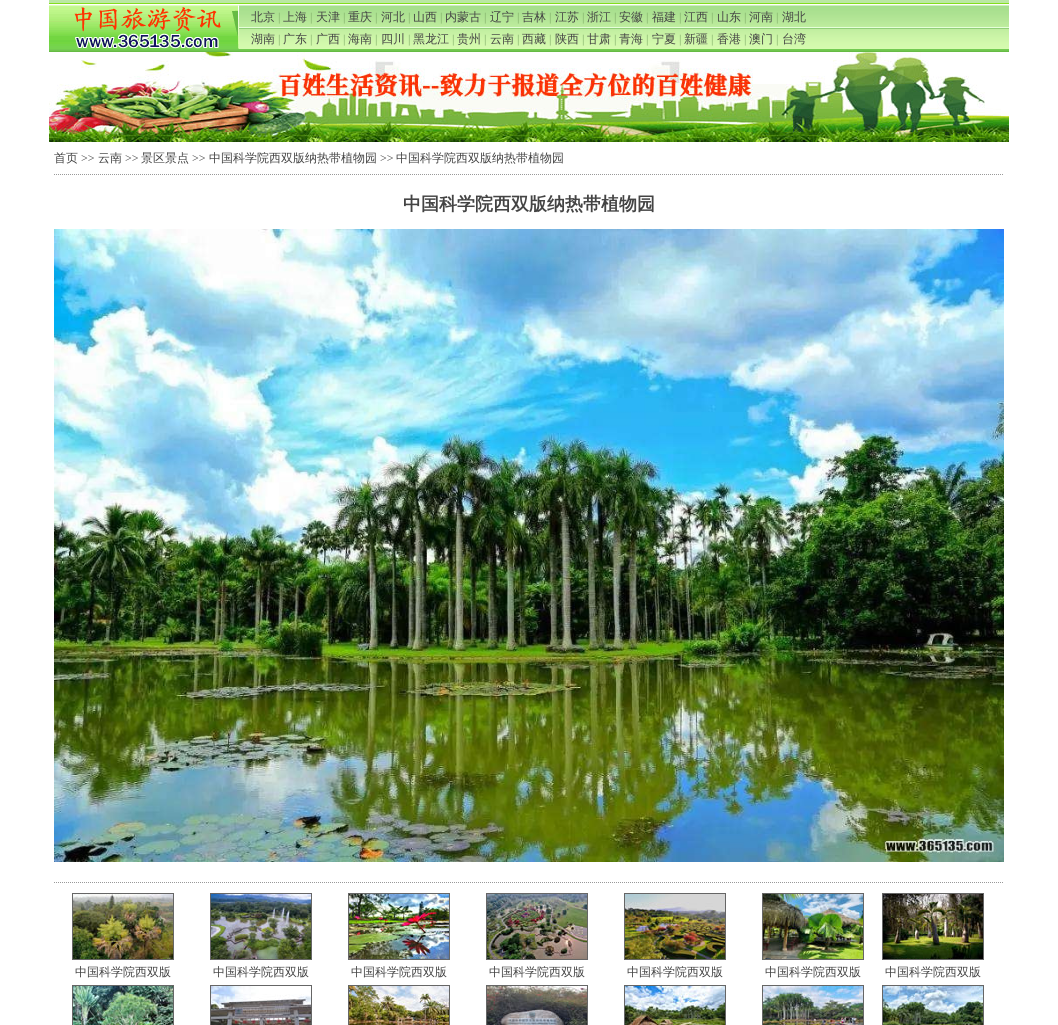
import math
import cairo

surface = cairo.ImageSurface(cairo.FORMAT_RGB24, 1058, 1025)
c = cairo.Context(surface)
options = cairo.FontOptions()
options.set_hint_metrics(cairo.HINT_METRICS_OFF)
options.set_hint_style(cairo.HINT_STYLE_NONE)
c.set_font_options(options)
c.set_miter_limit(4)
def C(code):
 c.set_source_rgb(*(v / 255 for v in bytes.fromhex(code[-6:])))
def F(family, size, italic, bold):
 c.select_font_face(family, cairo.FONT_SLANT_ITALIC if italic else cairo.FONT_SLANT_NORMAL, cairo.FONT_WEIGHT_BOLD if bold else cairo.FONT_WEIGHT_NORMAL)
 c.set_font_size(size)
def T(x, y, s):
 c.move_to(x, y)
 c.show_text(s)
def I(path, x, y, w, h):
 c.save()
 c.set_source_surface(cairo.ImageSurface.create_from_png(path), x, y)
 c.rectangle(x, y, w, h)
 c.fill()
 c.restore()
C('ffffff')
c.paint()
I('1.png',49,0,960,52)
I('2.png',49,5,190,44)
F('WenQuanYi Zen Hei Medium',12,0,0)
C('444444')
T(251,21,'北京')
F('Liberation Serif',12,0,0)
C('7eac65')
T(278,21,'|')
F('WenQuanYi Zen Hei Medium',12,0,0)
C('444444')
T(283,21,'上海')
F('Liberation Serif',12,0,0)
C('7eac65')
T(310,21,'|')
F('WenQuanYi Zen Hei Medium',12,0,0)
C('444444')
T(316,21,'天津')
F('Liberation Serif',12,0,0)
C('7eac65')
T(343,21,'|')
F('WenQuanYi Zen Hei Medium',12,0,0)
C('444444')
T(348,21,'重庆')
F('Liberation Serif',12,0,0)
C('7eac65')
T(375,21,'|')
F('WenQuanYi Zen Hei Medium',12,0,0)
C('444444')
T(381,21,'河北')
F('Liberation Serif',12,0,0)
C('7eac65')
T(408,21,'|')
F('WenQuanYi Zen Hei Medium',12,0,0)
C('444444')
T(413,21,'山西')
F('Liberation Serif',12,0,0)
C('7eac65')
T(440,21,'|')
F('WenQuanYi Zen Hei Medium',12,0,0)
C('444444')
T(445,21,'内蒙古')
F('Liberation Serif',12,0,0)
C('7eac65')
T(484,21,'|')
F('WenQuanYi Zen Hei Medium',12,0,0)
C('444444')
T(490,21,'辽宁')
F('Liberation Serif',12,0,0)
C('7eac65')
T(517,21,'|')
F('WenQuanYi Zen Hei Medium',12,0,0)
C('444444')
T(522,21,'吉林')
F('Liberation Serif',12,0,0)
C('7eac65')
T(549,21,'|')
F('WenQuanYi Zen Hei Medium',12,0,0)
C('444444')
T(555,21,'江苏')
F('Liberation Serif',12,0,0)
C('7eac65')
T(582,21,'|')
F('WenQuanYi Zen Hei Medium',12,0,0)
C('444444')
T(587,21,'浙江')
F('Liberation Serif',12,0,0)
C('7eac65')
T(614,21,'|')
F('WenQuanYi Zen Hei Medium',12,0,0)
C('444444')
T(619,21,'安徽')
F('Liberation Serif',12,0,0)
C('7eac65')
T(646,21,'|')
F('WenQuanYi Zen Hei Medium',12,0,0)
C('444444')
T(652,21,'福建')
F('Liberation Serif',12,0,0)
C('7eac65')
T(679,21,'|')
F('WenQuanYi Zen Hei Medium',12,0,0)
C('444444')
T(684,21,'江西')
F('Liberation Serif',12,0,0)
C('7eac65')
T(711,21,'|')
F('WenQuanYi Zen Hei Medium',12,0,0)
C('444444')
T(717,21,'山东')
F('Liberation Serif',12,0,0)
C('7eac65')
T(744,21,'|')
F('WenQuanYi Zen Hei Medium',12,0,0)
C('444444')
T(749,21,'河南')
F('Liberation Serif',12,0,0)
C('7eac65')
T(776,21,'|')
F('WenQuanYi Zen Hei Medium',12,0,0)
C('444444')
T(782,21,'湖北')
T(251,43,'湖南')
F('Liberation Serif',12,0,0)
C('7eac65')
T(278,43,'|')
F('WenQuanYi Zen Hei Medium',12,0,0)
C('444444')
T(283,43,'广东')
F('Liberation Serif',12,0,0)
C('7eac65')
T(310,43,'|')
F('WenQuanYi Zen Hei Medium',12,0,0)
C('444444')
T(316,43,'广西')
F('Liberation Serif',12,0,0)
C('7eac65')
T(343,43,'|')
F('WenQuanYi Zen Hei Medium',12,0,0)
C('444444')
T(348,43,'海南')
F('Liberation Serif',12,0,0)
C('7eac65')
T(375,43,'|')
F('WenQuanYi Zen Hei Medium',12,0,0)
C('444444')
T(381,43,'四川')
F('Liberation Serif',12,0,0)
C('7eac65')
T(408,43,'|')
F('WenQuanYi Zen Hei Medium',12,0,0)
C('444444')
T(413,43,'黑龙江')
F('Liberation Serif',12,0,0)
C('7eac65')
T(452,43,'|')
F('WenQuanYi Zen Hei Medium',12,0,0)
C('444444')
T(457,43,'贵州')
F('Liberation Serif',12,0,0)
C('7eac65')
T(484,43,'|')
F('WenQuanYi Zen Hei Medium',12,0,0)
C('444444')
T(490,43,'云南')
F('Liberation Serif',12,0,0)
C('7eac65')
T(517,43,'|')
F('WenQuanYi Zen Hei Medium',12,0,0)
C('444444')
T(522,43,'西藏')
F('Liberation Serif',12,0,0)
C('7eac65')
T(549,43,'|')
F('WenQuanYi Zen Hei Medium',12,0,0)
C('444444')
T(555,43,'陕西')
F('Liberation Serif',12,0,0)
C('7eac65')
T(582,43,'|')
F('WenQuanYi Zen Hei Medium',12,0,0)
C('444444')
T(587,43,'甘肃')
F('Liberation Serif',12,0,0)
C('7eac65')
T(614,43,'|')
F('WenQuanYi Zen Hei Medium',12,0,0)
C('444444')
T(619,43,'青海')
F('Liberation Serif',12,0,0)
C('7eac65')
T(646,43,'|')
F('WenQuanYi Zen Hei Medium',12,0,0)
C('444444')
T(652,43,'宁夏')
F('Liberation Serif',12,0,0)
C('7eac65')
T(679,43,'|')
F('WenQuanYi Zen Hei Medium',12,0,0)
C('444444')
T(684,43,'新疆')
F('Liberation Serif',12,0,0)
C('7eac65')
T(711,43,'|')
F('WenQuanYi Zen Hei Medium',12,0,0)
C('444444')
T(717,43,'香港')
F('Liberation Serif',12,0,0)
C('7eac65')
T(744,43,'|')
F('WenQuanYi Zen Hei Medium',12,0,0)
C('444444')
T(749,43,'澳门')
F('Liberation Serif',12,0,0)
C('7eac65')
T(776,43,'|')
F('WenQuanYi Zen Hei Medium',12,0,0)
C('444444')
T(782,43,'台湾')
I('3.png',49,52,960,90)
T(54,162,'首页')
F('Liberation Serif',12,0,0)
T(81,162,'>>')
F('WenQuanYi Zen Hei Medium',12,0,0)
T(98,162,'云南')
F('Liberation Serif',12,0,0)
T(125,162,'>>')
F('WenQuanYi Zen Hei Medium',12,0,0)
T(141,162,'景区景点')
F('Liberation Serif',12,0,0)
T(192,162,'>>')
F('WenQuanYi Zen Hei Medium',12,0,0)
T(209,162,'中国科学院西双版纳热带植物园')
F('Liberation Serif',12,0,0)
T(380,162,'>>')
F('WenQuanYi Zen Hei Medium',12,0,0)
T(396,162,'中国科学院西双版纳热带植物园')
c.new_path()
c.move_to(54,174.5)
c.line_to(1004,174.5)
C('999999')
c.set_line_width(1)
c.set_dash([1,1])
c.stroke()
c.new_path()
c.move_to(54,882.5)
c.line_to(1004,882.5)
c.stroke()
F('WenQuanYi Zen Hei',18,0,1)
C('444444')
T(403,210,'中国科学院西双版纳热带植物园')
I('4.png',54,229,950,633)
c.rectangle(72.5,893.5,101,66)
C('666666')
c.set_dash([])
c.stroke()
I('5.png',73,894,100,65)
F('WenQuanYi Zen Hei Medium',12,0,0)
C('444444')
T(75,976,'中国科学院西双版')
c.rectangle(210.5,893.5,101,66)
C('666666')
c.stroke()
I('6.png',211,894,100,65)
C('444444')
T(213,976,'中国科学院西双版')
c.rectangle(348.5,893.5,101,66)
C('666666')
c.stroke()
I('7.png',349,894,100,65)
C('444444')
T(351,976,'中国科学院西双版')
c.rectangle(486.5,893.5,101,66)
C('666666')
c.stroke()
I('8.png',487,894,100,65)
C('444444')
T(489,976,'中国科学院西双版')
c.rectangle(624.5,893.5,101,66)
C('666666')
c.stroke()
I('9.png',625,894,100,65)
C('444444')
T(627,976,'中国科学院西双版')
c.rectangle(762.5,893.5,101,66)
C('666666')
c.stroke()
I('10.png',763,894,100,65)
C('444444')
T(765,976,'中国科学院西双版')
c.rectangle(882.5,893.5,101,66)
C('666666')
c.stroke()
I('11.png',883,894,100,65)
C('444444')
T(885,976,'中国科学院西双版')
c.rectangle(72.5,985.5,101,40)
C('666666')
c.stroke()
I('12.png',73,986,100,39)
c.rectangle(210.5,985.5,101,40)
c.stroke()
I('13.png',211,986,100,39)
c.rectangle(348.5,985.5,101,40)
c.stroke()
I('14.png',349,986,100,39)
c.rectangle(486.5,985.5,101,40)
c.stroke()
I('15.png',487,986,100,39)
c.rectangle(624.5,985.5,101,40)
c.stroke()
I('16.png',625,986,100,39)
c.rectangle(762.5,985.5,101,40)
c.stroke()
I('17.png',763,986,100,39)
c.rectangle(882.5,985.5,101,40)
c.stroke()
I('18.png',883,986,100,39)
surface.write_to_png('o.png')
